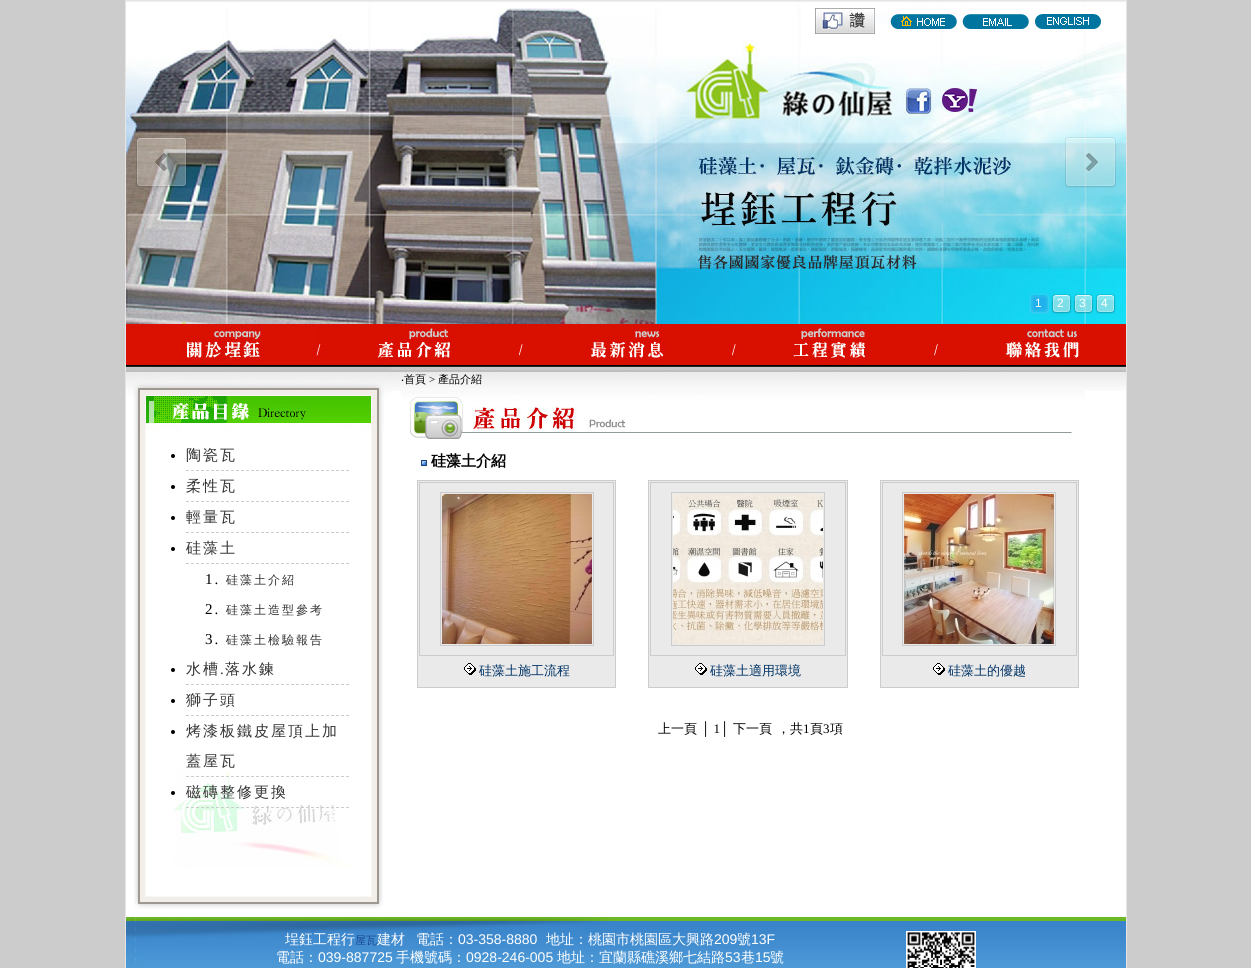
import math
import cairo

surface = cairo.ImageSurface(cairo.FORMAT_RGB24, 1251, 968)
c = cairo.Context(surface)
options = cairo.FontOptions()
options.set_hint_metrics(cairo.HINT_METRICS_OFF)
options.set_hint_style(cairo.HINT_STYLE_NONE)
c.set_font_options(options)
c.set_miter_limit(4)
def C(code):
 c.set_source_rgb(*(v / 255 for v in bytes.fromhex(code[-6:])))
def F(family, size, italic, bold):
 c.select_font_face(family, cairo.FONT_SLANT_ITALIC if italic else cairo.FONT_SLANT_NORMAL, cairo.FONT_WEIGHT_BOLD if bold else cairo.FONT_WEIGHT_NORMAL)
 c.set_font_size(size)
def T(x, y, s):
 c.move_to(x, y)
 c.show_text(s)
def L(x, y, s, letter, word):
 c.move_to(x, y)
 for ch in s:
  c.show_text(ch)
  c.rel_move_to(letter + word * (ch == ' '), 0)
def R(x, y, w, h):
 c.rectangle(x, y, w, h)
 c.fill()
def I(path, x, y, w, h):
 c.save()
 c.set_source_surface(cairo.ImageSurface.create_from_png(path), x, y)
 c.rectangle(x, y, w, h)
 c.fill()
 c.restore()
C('cccccc')
c.paint()
C('ffffff')
R(126,391,1000,525)
c.rectangle(125.5,.5,1001,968)
C('e5e5e5')
c.set_line_width(1)
c.stroke()
I('5.png',126,1,1000,323)
I('1.png',815,8,60,26)
I('2.png',890,14,67,15)
I('3.png',962,14,67,15)
I('4.png',1035,14,66,15)
I('6.png',136,137,51,51)
I('7.png',1065,137,51,51)
I('8.png',1029,294,21,20)
F('Liberation Sans',12,0,0)
C('ffffff')
L(1035,307,'1',1,0)
I('9.png',1051,294,21,20)
L(1057,307,'2',1,0)
I('10.png',1073,294,21,20)
L(1079,307,'3',1,0)
I('11.png',1095,294,21,20)
L(1101,307,'4',1,0)
I('12.png',126,324,192,42)
I('13.png',318,324,204,42)
I('14.png',522,324,212,42)
I('15.png',734,324,202,42)
I('16.png',936,324,190,42)
I('17.png',126,366,1000,25)
I('18.png',126,367,265,63)
I('19.png',134,430,12,456)
I('20.png',172,770,179,98)
C('000000')
c.arc(173,456,2,0,2 * math.pi)
c.fill()
c.new_path()
c.move_to(186,470.5)
c.line_to(349,470.5)
C('cccccc')
c.set_dash([3,2])
c.stroke()
F('WenQuanYi Zen Hei Medium',15,0,0)
C('333333')
L(186,460,'陶瓷瓦',2,0)
C('000000')
c.new_path()
c.arc(173,487,2,0,2 * math.pi)
c.fill()
c.new_path()
c.move_to(186,501.5)
c.line_to(349,501.5)
C('cccccc')
c.stroke()
C('333333')
L(186,491,'柔性瓦',2,0)
C('000000')
c.new_path()
c.arc(173,518,2,0,2 * math.pi)
c.fill()
c.new_path()
c.move_to(186,532.5)
c.line_to(349,532.5)
C('cccccc')
c.stroke()
C('333333')
L(186,522,'輕量瓦',2,0)
C('000000')
c.new_path()
c.arc(173,549,2,0,2 * math.pi)
c.fill()
c.new_path()
c.move_to(186,563.5)
c.line_to(349,563.5)
C('cccccc')
c.stroke()
C('333333')
L(186,553,'硅藻土',2,0)
F('Liberation Serif',15,0,0)
C('000000')
L(205,584,'1.',2,0)
F('WenQuanYi Zen Hei Medium',12,0,0)
C('333333')
L(226,584,'硅藻土介紹',2,0)
F('Liberation Serif',15,0,0)
C('000000')
L(205,614,'2.',2,0)
F('WenQuanYi Zen Hei Medium',12,0,0)
C('333333')
L(226,614,'硅藻土造型參考',2,0)
F('Liberation Serif',15,0,0)
C('000000')
L(205,644,'3.',2,0)
F('WenQuanYi Zen Hei Medium',12,0,0)
C('333333')
L(226,644,'硅藻土檢驗報告',2,0)
C('000000')
c.new_path()
c.arc(173,670,2,0,2 * math.pi)
c.fill()
c.new_path()
c.move_to(186,684.5)
c.line_to(349,684.5)
C('cccccc')
c.stroke()
F('WenQuanYi Zen Hei Medium',15,0,0)
C('333333')
L(186,674,'水槽',2,0)
F('Liberation Serif',15,0,0)
L(220,674,'.',2,0)
F('WenQuanYi Zen Hei Medium',15,0,0)
L(225,674,'落水鍊',2,0)
C('000000')
c.new_path()
c.arc(173,701,2,0,2 * math.pi)
c.fill()
c.new_path()
c.move_to(186,715.5)
c.line_to(349,715.5)
C('cccccc')
c.stroke()
C('333333')
L(186,705,'獅子頭',2,0)
C('000000')
c.new_path()
c.arc(173,732,2,0,2 * math.pi)
c.fill()
c.new_path()
c.move_to(186,776.5)
c.line_to(349,776.5)
C('cccccc')
c.stroke()
C('333333')
L(186,736,'烤漆板鐵皮屋頂上加',2,0)
L(186,766,'蓋屋瓦',2,0)
C('000000')
c.new_path()
c.arc(173,793,2,0,2 * math.pi)
c.fill()
c.new_path()
c.move_to(186,807.5)
c.line_to(349,807.5)
C('cccccc')
c.stroke()
C('333333')
L(186,797,'磁磚整修更換',2,0)
I('21.png',371,430,12,456)
I('22.png',134,886,249,24)
F('Noto Sans',11,0,0)
C('000000')
T(401,383,'‧')
F('WenQuanYi Zen Hei Medium',11,0,0)
T(404,383,'首頁')
F('Liberation Serif',11,0,0)
T(429,383,'>')
F('WenQuanYi Zen Hei Medium',11,0,0)
T(438,383,'產品介紹')
I('23.png',401,391,684,48)
I('24.png',421,460,6,6)
F('WenQuanYi Zen Hei',15,0,1)
T(431,466,'硅藻土介紹')
C('eaeaea')
c.rectangle(417.5,480.5,198,207)
c.fill_preserve()
C('cccccc')
c.set_dash([])
c.stroke()
c.rectangle(419.5,482.5,194,173)
c.stroke()
c.rectangle(440.5,492.5,153,153)
c.stroke()
I('25.png',442,494,150,150)
I('26.png',464,663,12,12)
F('WenQuanYi Zen Hei Medium',13,0,0)
C('003366')
T(479,675,'硅藻土施工流程')
C('eaeaea')
c.rectangle(648.5,480.5,199,207)
c.fill_preserve()
C('cccccc')
c.stroke()
c.rectangle(650.5,482.5,195,173)
c.stroke()
c.rectangle(671.5,492.5,153,153)
c.stroke()
I('27.png',673,494,150,150)
I('26.png',695,663,12,12)
C('003366')
T(710,675,'硅藻土適用環境')
C('eaeaea')
c.rectangle(880.5,480.5,198,207)
c.fill_preserve()
C('cccccc')
c.stroke()
c.rectangle(882.5,482.5,194,173)
c.stroke()
c.rectangle(902.5,492.5,153,153)
c.stroke()
I('28.png',904,494,150,150)
I('26.png',933,663,12,12)
C('003366')
T(948,675,'硅藻土的優越')
C('000000')
T(658,733,'上一頁')
F('Liberation Serif',13,0,0)
T(701,733,'│ 1│')
F('WenQuanYi Zen Hei Medium',13,0,0)
T(733,733,'下一頁')
T(777,733,'，共')
F('Liberation Serif',13,0,0)
T(803,733,'1')
F('WenQuanYi Zen Hei Medium',13,0,0)
T(810,733,'頁')
F('Liberation Serif',13,0,0)
T(823,733,'3')
F('WenQuanYi Zen Hei Medium',13,0,0)
T(830,733,'項')
I('29.png',126,916,1000,52)
F('WenQuanYi Zen Hei Medium',14,0,0)
C('ffffff')
T(285,944,'埕鈺工程行')
F('WenQuanYi Zen Hei Medium',11,0,0)
C('194793')
T(355,944,'屋瓦')
F('WenQuanYi Zen Hei Medium',14,0,0)
C('ffffff')
T(377,944,'建材')
T(416,944,'電話：')
F('Liberation Sans',14,0,0)
T(458,944,'03-358-8880')
F('WenQuanYi Zen Hei Medium',14,0,0)
T(546,944,'地址：桃園市桃園區大興路')
F('Liberation Sans',14,0,0)
T(714,944,'209')
F('WenQuanYi Zen Hei Medium',14,0,0)
T(737,944,'號')
F('Liberation Sans',14,0,0)
T(751,944,'13F')
F('WenQuanYi Zen Hei Medium',14,0,0)
T(276,962,'電話：')
F('Liberation Sans',14,0,0)
T(318,962,'039-887725')
F('WenQuanYi Zen Hei Medium',14,0,0)
T(396,962,'手機號碼：')
F('Liberation Sans',14,0,0)
T(466,962,'0928-246-005')
F('WenQuanYi Zen Hei Medium',14,0,0)
T(557,962,'地址：宜蘭縣礁溪鄉七結路')
F('Liberation Sans',14,0,0)
T(725,962,'53')
F('WenQuanYi Zen Hei Medium',14,0,0)
T(741,962,'巷')
F('Liberation Sans',14,0,0)
T(755,962,'15')
F('WenQuanYi Zen Hei Medium',14,0,0)
T(770,962,'號')
I('30.png',906,931,70,37)
surface.write_to_png('o.png')
